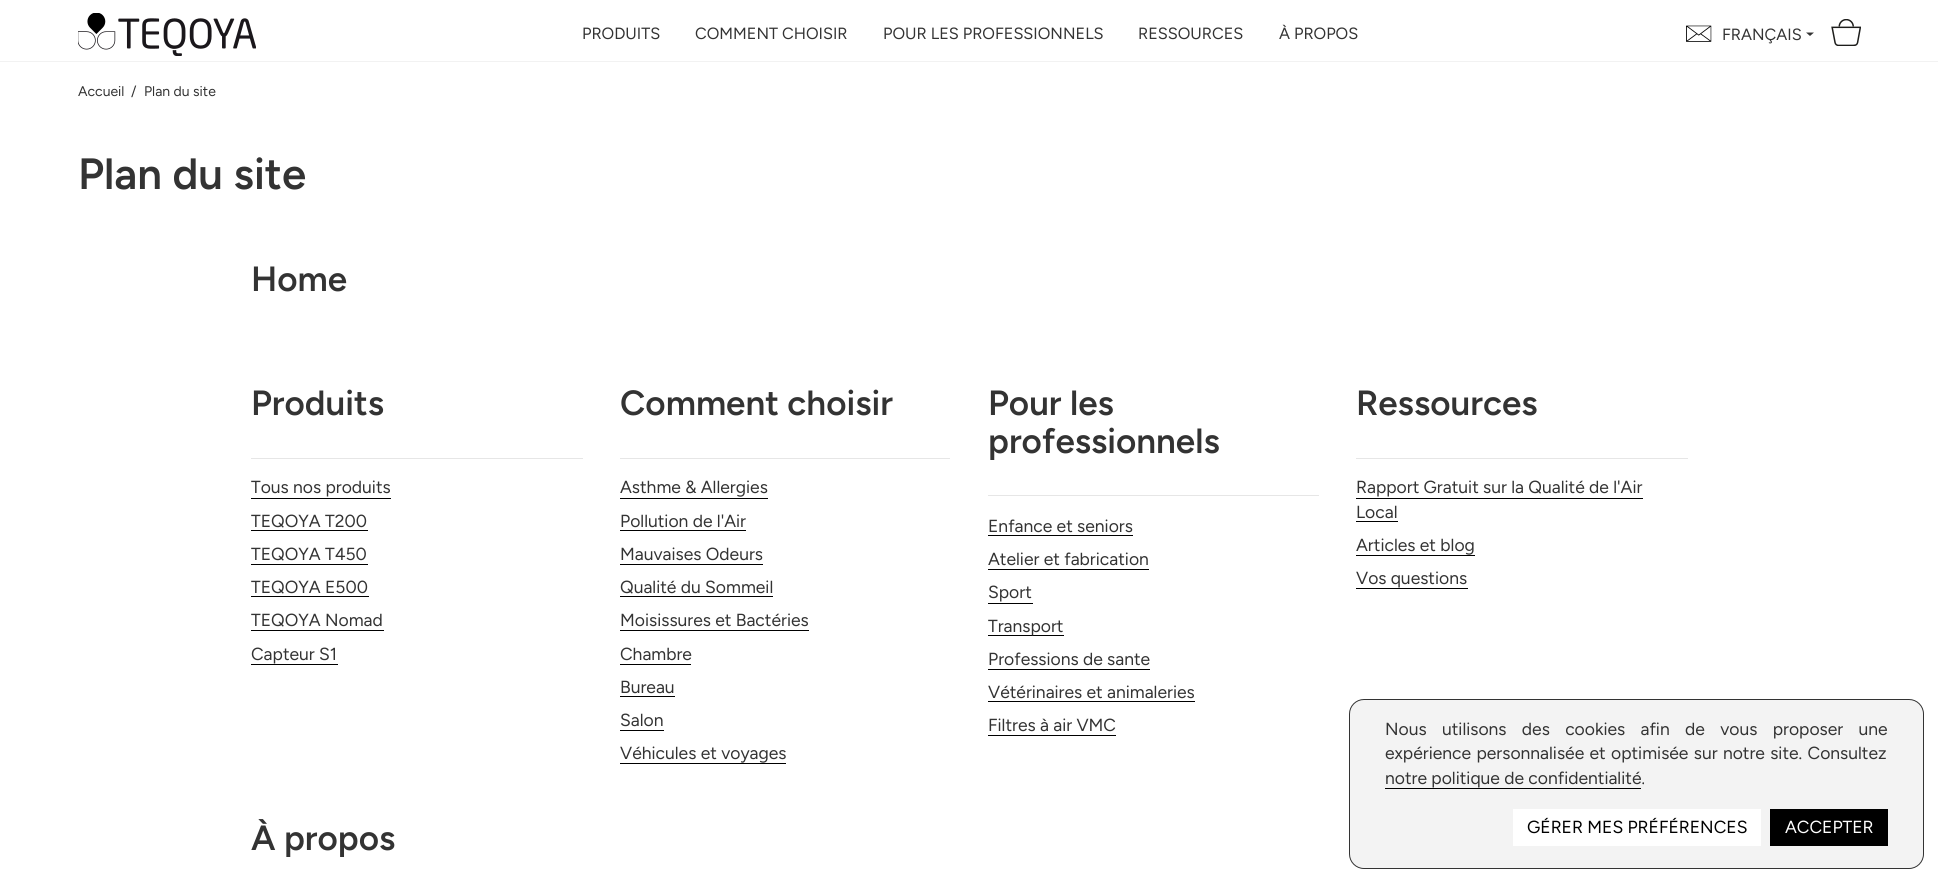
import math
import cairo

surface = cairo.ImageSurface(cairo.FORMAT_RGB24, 1938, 883)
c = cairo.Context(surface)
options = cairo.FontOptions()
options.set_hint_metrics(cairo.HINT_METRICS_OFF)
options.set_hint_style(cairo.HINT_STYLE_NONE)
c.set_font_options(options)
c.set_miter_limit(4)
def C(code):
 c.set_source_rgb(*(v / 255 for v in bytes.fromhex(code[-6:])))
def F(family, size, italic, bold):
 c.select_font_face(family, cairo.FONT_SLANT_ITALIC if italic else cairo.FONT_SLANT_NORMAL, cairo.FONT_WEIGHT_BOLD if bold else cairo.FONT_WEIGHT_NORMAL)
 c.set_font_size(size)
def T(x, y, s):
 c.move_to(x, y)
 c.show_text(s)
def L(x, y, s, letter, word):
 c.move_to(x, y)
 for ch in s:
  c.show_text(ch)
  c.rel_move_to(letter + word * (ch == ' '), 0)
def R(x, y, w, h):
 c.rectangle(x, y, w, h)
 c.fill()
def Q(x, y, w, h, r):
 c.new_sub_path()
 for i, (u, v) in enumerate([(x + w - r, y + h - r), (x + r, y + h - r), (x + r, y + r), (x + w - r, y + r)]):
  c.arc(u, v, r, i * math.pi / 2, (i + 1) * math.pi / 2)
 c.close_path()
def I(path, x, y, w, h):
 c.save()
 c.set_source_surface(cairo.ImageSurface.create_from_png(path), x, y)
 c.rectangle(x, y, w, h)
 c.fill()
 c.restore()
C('ffffff')
c.paint()
C('f2f2f2')
R(0,61,1938,1)
I('1.png',78,13,178,43)
F('Figtree Light',16.25,0,0)
C('333333')
T(582,39,'PRODUITS')
T(695,39,'COMMENT CHOISIR')
T(883,39,'POUR LES PROFESSIONNELS')
T(1138,39,'RESSOURCES')
T(1279,39,'À PROPOS')
I('2.png',1686,25,26,17)
T(1722,40,'FRANÇAIS')
c.new_path()
c.move_to(1806,32.5)
c.line_to(1814,32.5)
c.line_to(1810,36)
c.close_path()
c.fill()
I('3.png',1831,19,30,27)
F('Figtree Light',14,0,0)
T(78,96,'Accueil')
T(131,96,'/')
T(144,96,'Plan du site')
F('Figtree SemiBold',43.75,0,0)
T(78,189,'Plan du site')
F('Figtree SemiBold',35,0,0)
T(251,291,'Home')
T(251,415,'Produits')
C('e6e6e6')
R(251,458,332,1)
F('Figtree Light',17.5,0,0)
C('333333')
T(251,493,'Tous nos produits')
C('000000')
R(251,498,140,1)
C('333333')
T(251,527,'TEQOYA T200')
C('000000')
R(251,530,117,1)
C('333333')
T(251,560,'TEQOYA T450')
C('000000')
R(251,564,117,1)
C('333333')
T(251,593,'TEQOYA E500')
C('000000')
R(251,596,118,1)
C('333333')
T(251,626,'TEQOYA Nomad')
C('000000')
R(251,630,133,1)
C('333333')
T(251,660,'Capteur S1')
C('000000')
R(251,664,87,1)
F('Figtree SemiBold',35,0,0)
C('333333')
T(620,415,'Comment choisir')
C('e6e6e6')
R(620,458,330,1)
F('Figtree Light',17.5,0,0)
C('333333')
T(620,493,'Asthme & Allergies')
C('000000')
R(620,498,148,1)
C('333333')
T(620,527,'Pollution de l\'Air')
C('000000')
R(620,530,126,1)
C('333333')
T(620,560,'Mauvaises Odeurs')
C('000000')
R(620,564,143,1)
C('333333')
T(620,593,'Qualité du Sommeil')
C('000000')
R(620,596,153,1)
C('333333')
T(620,626,'Moisissures et Bactéries')
C('000000')
R(620,630,189,1)
C('333333')
T(620,660,'Chambre')
C('000000')
R(620,664,71,1)
C('333333')
T(620,693,'Bureau')
C('000000')
R(620,696,55,1)
C('333333')
T(620,726,'Salon')
C('000000')
R(620,730,44,1)
C('333333')
T(620,759,'Véhicules et voyages')
C('000000')
R(620,763,166,1)
F('Figtree SemiBold',35,0,0)
C('333333')
T(988,415,'Pour les')
T(988,453,'professionnels')
C('e6e6e6')
R(988,495,331,1)
F('Figtree Light',17.5,0,0)
C('333333')
T(988,532,'Enfance et seniors')
C('000000')
R(988,535,145,1)
C('333333')
T(988,565,'Atelier et fabrication')
C('000000')
R(988,569,161,1)
C('333333')
T(988,598,'Sport')
C('000000')
R(988,603,45,1)
R(988,635,76,1)
C('333333')
T(988,632,'Transport')
T(988,665,'Professions de sante')
C('000000')
R(988,669,162,1)
C('333333')
T(988,698,'Vétérinaires et animaleries')
C('000000')
R(988,701,207,1)
C('333333')
T(988,731,'Filtres à air VMC')
C('000000')
R(988,735,128,1)
F('Figtree SemiBold',35,0,0)
C('333333')
T(1356,415,'Ressources')
C('e6e6e6')
R(1356,458,332,1)
F('Figtree Light',17.5,0,0)
C('333333')
T(1356,493,'Rapport Gratuit sur la Qualité de l\'Air')
C('000000')
R(1356,498,287,1)
C('333333')
T(1356,518,'Local')
C('000000')
R(1356,521,42,1)
C('333333')
T(1356,551,'Articles et blog')
C('000000')
R(1356,555,119,1)
C('333333')
T(1356,584,'Vos questions')
C('000000')
R(1356,588,112,1)
F('Figtree SemiBold',35,0,0)
C('333333')
T(251,850,'À propos')
C('f3f3f3')
Q(1349.5,699.5,574,169,14.5)
c.fill_preserve()
C('333333')
c.set_line_width(1)
c.stroke()
F('Figtree Light',17.5,0,0)
L(1385,735,'Nous utilisons des cookies afin de vous proposer une',0,11)
L(1385,759,'expérience personnalisée et optimisée sur notre site. Consultez',0,1)
T(1385,784,'notre politique de confidentialité.')
C('000000')
R(1385,788,256,1)
C('ffffff')
R(1513,809,248,37)
C('000000')
T(1527,833,'GÉRER MES PRÉFÉRENCES')
R(1770,809,118,37)
C('ffffff')
T(1785,833,'ACCEPTER')
surface.write_to_png('o.png')
